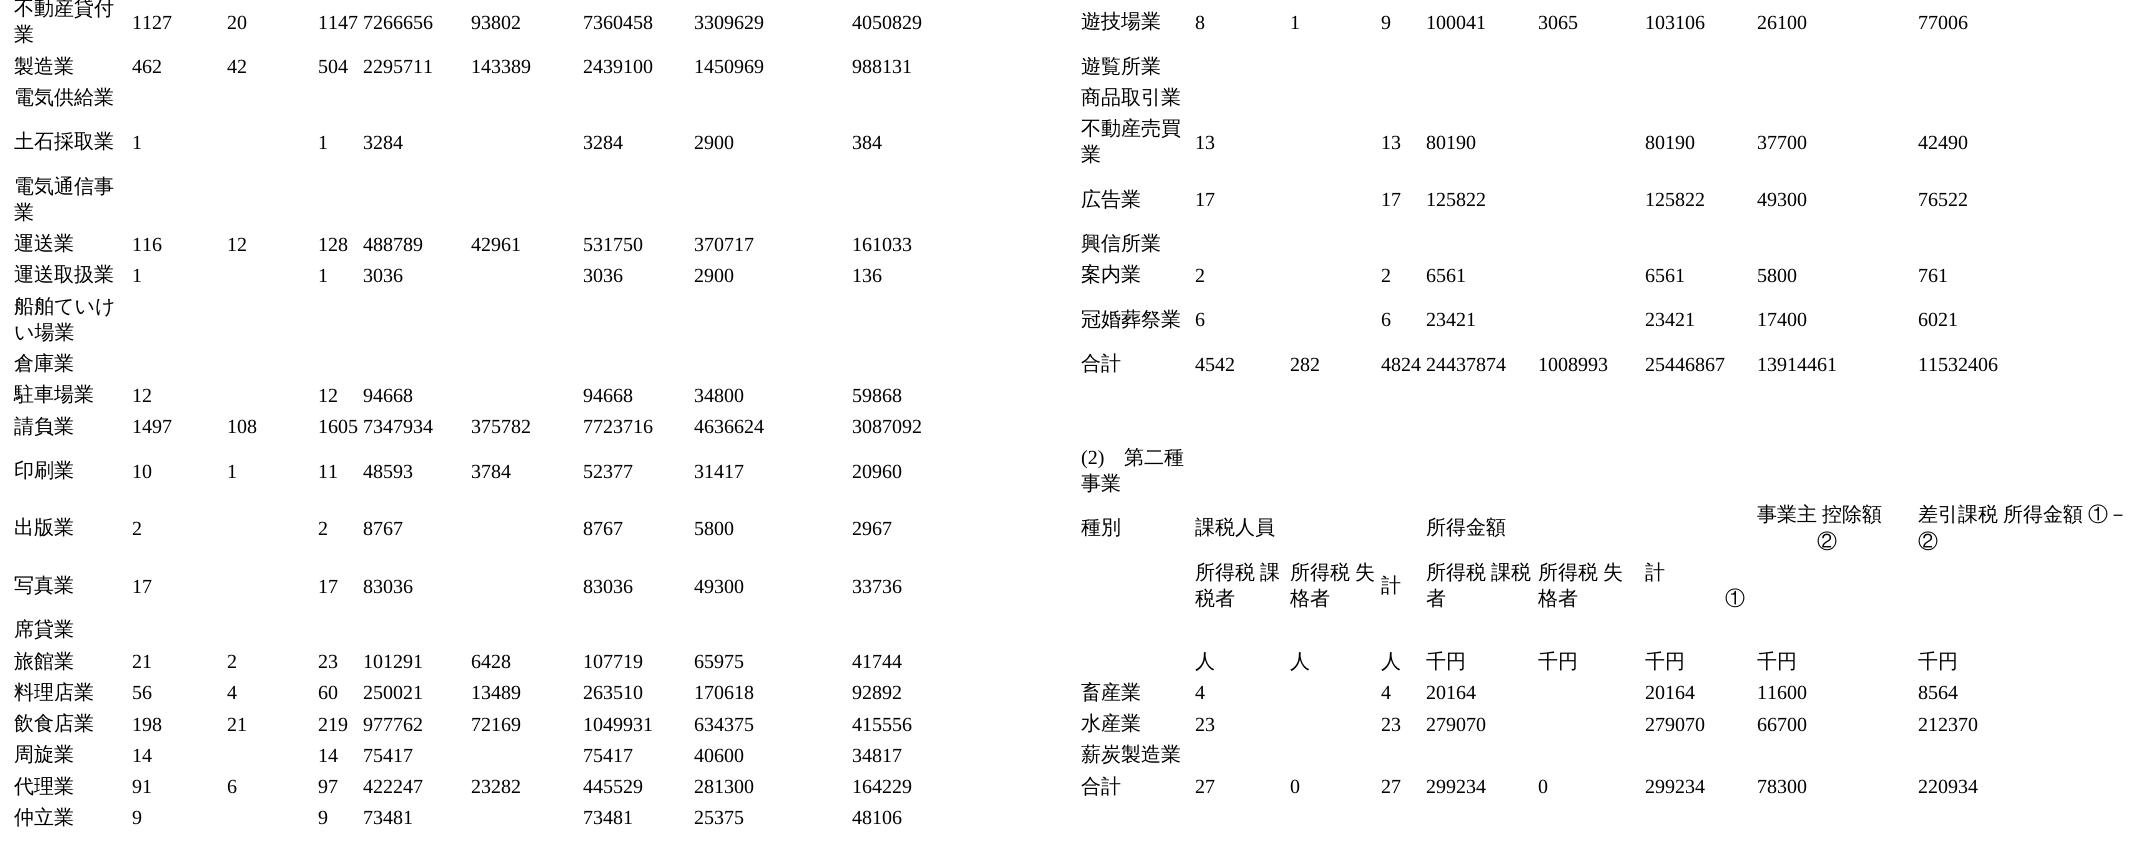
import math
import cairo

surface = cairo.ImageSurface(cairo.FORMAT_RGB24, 2156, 845)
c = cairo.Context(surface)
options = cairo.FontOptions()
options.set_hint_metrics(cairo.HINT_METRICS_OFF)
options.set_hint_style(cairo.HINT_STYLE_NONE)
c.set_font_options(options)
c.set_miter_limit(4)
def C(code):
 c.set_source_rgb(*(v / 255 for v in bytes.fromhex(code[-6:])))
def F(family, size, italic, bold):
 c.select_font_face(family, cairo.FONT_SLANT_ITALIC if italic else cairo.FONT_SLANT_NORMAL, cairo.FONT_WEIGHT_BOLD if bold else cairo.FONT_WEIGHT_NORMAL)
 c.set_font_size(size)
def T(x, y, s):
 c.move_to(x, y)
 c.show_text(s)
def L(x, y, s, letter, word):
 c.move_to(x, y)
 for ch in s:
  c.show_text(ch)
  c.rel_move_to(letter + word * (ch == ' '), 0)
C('ffffff')
c.paint()
F('WenQuanYi Zen Hei Medium',20,0,0)
C('000000')
T(14,15,'不動産貸付')
T(14,41,'業')
F('Liberation Serif',20,0,0)
T(132,29,'1127')
T(227,29,'20')
T(318,29,'1147 7266656')
T(471,29,'93802')
T(583,29,'7360458')
T(694,29,'3309629')
T(852,29,'4050829')
F('WenQuanYi Zen Hei Medium',20,0,0)
T(1081,28,'遊技場業')
F('Liberation Serif',20,0,0)
T(1195,29,'8')
T(1290,29,'1')
T(1381,29,'9')
T(1426,29,'100041')
T(1538,29,'3065')
T(1645,29,'103106')
T(1757,29,'26100')
T(1918,29,'77006')
F('WenQuanYi Zen Hei Medium',20,0,0)
T(14,73,'製造業')
F('Liberation Serif',20,0,0)
T(132,73,'462')
T(227,73,'42')
T(318,73,'504')
T(363,73,'2295711')
T(471,73,'143389')
T(583,73,'2439100')
T(694,73,'1450969')
T(852,73,'988131')
F('WenQuanYi Zen Hei Medium',20,0,0)
T(1081,73,'遊覧所業')
T(14,104,'電気供給業')
T(1081,104,'商品取引業')
T(14,148,'土石採取業')
F('Liberation Serif',20,0,0)
T(132,149,'1')
T(318,149,'1')
T(363,149,'3284')
T(583,149,'3284')
T(694,149,'2900')
T(852,149,'384')
F('WenQuanYi Zen Hei Medium',20,0,0)
T(1081,135,'不動産売買')
T(1081,161,'業')
F('Liberation Serif',20,0,0)
T(1195,149,'13')
T(1381,149,'13')
T(1426,149,'80190')
T(1645,149,'80190')
T(1757,149,'37700')
T(1918,149,'42490')
F('WenQuanYi Zen Hei Medium',20,0,0)
T(14,193,'電気通信事')
T(14,219,'業')
T(1081,206,'広告業')
F('Liberation Serif',20,0,0)
T(1195,206,'17')
T(1381,206,'17')
T(1426,206,'125822')
T(1645,206,'125822')
T(1757,206,'49300')
T(1918,206,'76522')
F('WenQuanYi Zen Hei Medium',20,0,0)
T(14,250,'運送業')
F('Liberation Serif',20,0,0)
T(132,251,'116')
T(227,251,'12')
T(318,251,'128')
T(363,251,'488789')
T(471,251,'42961')
T(583,251,'531750')
T(694,251,'370717')
T(852,251,'161033')
F('WenQuanYi Zen Hei Medium',20,0,0)
T(1081,250,'興信所業')
T(14,281,'運送取扱業')
F('Liberation Serif',20,0,0)
T(132,282,'1')
T(318,282,'1')
T(363,282,'3036')
T(583,282,'3036')
T(694,282,'2900')
T(852,282,'136')
F('WenQuanYi Zen Hei Medium',20,0,0)
T(1081,281,'案内業')
F('Liberation Serif',20,0,0)
T(1195,282,'2')
T(1381,282,'2')
T(1426,282,'6561')
T(1645,282,'6561')
T(1757,282,'5800')
T(1918,282,'761')
F('WenQuanYi Zen Hei Medium',20,0,0)
T(14,313,'船舶ていけ')
T(14,339,'い場業')
T(1081,326,'冠婚葬祭業')
F('Liberation Serif',20,0,0)
T(1195,326,'6')
T(1381,326,'6')
T(1426,326,'23421')
T(1645,326,'23421')
T(1757,326,'17400')
T(1918,326,'6021')
F('WenQuanYi Zen Hei Medium',20,0,0)
T(14,370,'倉庫業')
T(1081,370,'合計')
F('Liberation Serif',20,0,0)
T(1195,371,'4542')
T(1290,371,'282')
T(1381,371,'4824 24437874')
T(1538,371,'1008993')
T(1645,371,'25446867')
T(1757,371,'13914461')
T(1918,371,'11532406')
F('WenQuanYi Zen Hei Medium',20,0,0)
T(14,401,'駐車場業')
F('Liberation Serif',20,0,0)
T(132,402,'12')
T(318,402,'12')
T(363,402,'94668')
T(583,402,'94668')
T(694,402,'34800')
T(852,402,'59868')
F('WenQuanYi Zen Hei Medium',20,0,0)
T(14,433,'請負業')
F('Liberation Serif',20,0,0)
T(132,433,'1497')
T(227,433,'108')
T(318,433,'1605 7347934')
T(471,433,'375782')
T(583,433,'7723716')
T(694,433,'4636624')
T(852,433,'3087092')
F('WenQuanYi Zen Hei Medium',20,0,0)
T(14,477,'印刷業')
F('Liberation Serif',20,0,0)
T(132,478,'10')
T(227,478,'1')
T(318,478,'11')
T(363,478,'48593')
T(471,478,'3784')
T(583,478,'52377')
T(694,478,'31417')
T(852,478,'20960')
T(1081,464,'(2)')
F('WenQuanYi Zen Hei Medium',20,0,0)
T(1124,464,'第二種')
T(1081,490,'事業')
T(14,534,'出版業')
F('Liberation Serif',20,0,0)
T(132,535,'2')
T(318,535,'2')
T(363,535,'8767')
T(583,535,'8767')
T(694,535,'5800')
T(852,535,'2967')
F('WenQuanYi Zen Hei Medium',20,0,0)
T(1081,534,'種別')
T(1195,534,'課税人員')
T(1426,534,'所得金額')
L(1757,521,'事業主 控除額',0,-1)
T(1817,548,'②')
L(1918,521,'差引課税 所得金額',0,-1)
T(2088,521,'①－')
T(1918,548,'②')
T(14,592,'写真業')
F('Liberation Serif',20,0,0)
T(132,593,'17')
T(318,593,'17')
T(363,593,'83036')
T(583,593,'83036')
T(694,593,'49300')
T(852,593,'33736')
F('WenQuanYi Zen Hei Medium',20,0,0)
L(1195,579,'所得税 課',0,-1)
T(1195,605,'税者')
L(1290,579,'所得税 失',0,-1)
T(1290,605,'格者')
T(1381,592,'計')
L(1426,579,'所得税 課税',0,-1)
T(1426,605,'者')
L(1538,579,'所得税 失',0,-1)
T(1538,605,'格者')
T(1645,579,'計')
T(1725,605,'①')
T(14,636,'席貸業')
T(14,668,'旅館業')
F('Liberation Serif',20,0,0)
T(132,668,'21')
T(227,668,'2')
T(318,668,'23')
T(363,668,'101291')
T(471,668,'6428')
T(583,668,'107719')
T(694,668,'65975')
T(852,668,'41744')
F('WenQuanYi Zen Hei Medium',20,0,0)
T(1195,668,'人')
T(1290,668,'人')
T(1381,668,'人')
T(1426,668,'千円')
T(1538,668,'千円')
T(1645,668,'千円')
T(1757,668,'千円')
T(1918,668,'千円')
T(14,699,'料理店業')
F('Liberation Serif',20,0,0)
T(132,699,'56')
T(227,699,'4')
T(318,699,'60')
T(363,699,'250021')
T(471,699,'13489')
T(583,699,'263510')
T(694,699,'170618')
T(852,699,'92892')
F('WenQuanYi Zen Hei Medium',20,0,0)
T(1081,699,'畜産業')
F('Liberation Serif',20,0,0)
T(1195,699,'4')
T(1381,699,'4')
T(1426,699,'20164')
T(1645,699,'20164')
T(1757,699,'11600')
T(1918,699,'8564')
F('WenQuanYi Zen Hei Medium',20,0,0)
T(14,730,'飲食店業')
F('Liberation Serif',20,0,0)
T(132,731,'198')
T(227,731,'21')
T(318,731,'219')
T(363,731,'977762')
T(471,731,'72169')
T(583,731,'1049931')
T(694,731,'634375')
T(852,731,'415556')
F('WenQuanYi Zen Hei Medium',20,0,0)
T(1081,730,'水産業')
F('Liberation Serif',20,0,0)
T(1195,731,'23')
T(1381,731,'23')
T(1426,731,'279070')
T(1645,731,'279070')
T(1757,731,'66700')
T(1918,731,'212370')
F('WenQuanYi Zen Hei Medium',20,0,0)
T(14,761,'周旋業')
F('Liberation Serif',20,0,0)
T(132,762,'14')
T(318,762,'14')
T(363,762,'75417')
T(583,762,'75417')
T(694,762,'40600')
T(852,762,'34817')
F('WenQuanYi Zen Hei Medium',20,0,0)
T(1081,761,'薪炭製造業')
T(14,793,'代理業')
F('Liberation Serif',20,0,0)
T(132,793,'91')
T(227,793,'6')
T(318,793,'97')
T(363,793,'422247')
T(471,793,'23282')
T(583,793,'445529')
T(694,793,'281300')
T(852,793,'164229')
F('WenQuanYi Zen Hei Medium',20,0,0)
T(1081,793,'合計')
F('Liberation Serif',20,0,0)
T(1195,793,'27')
T(1290,793,'0')
T(1381,793,'27')
T(1426,793,'299234')
T(1538,793,'0')
T(1645,793,'299234')
T(1757,793,'78300')
T(1918,793,'220934')
F('WenQuanYi Zen Hei Medium',20,0,0)
T(14,824,'仲立業')
F('Liberation Serif',20,0,0)
T(132,824,'9')
T(318,824,'9')
T(363,824,'73481')
T(583,824,'73481')
T(694,824,'25375')
T(852,824,'48106')
surface.write_to_png('o.png')
